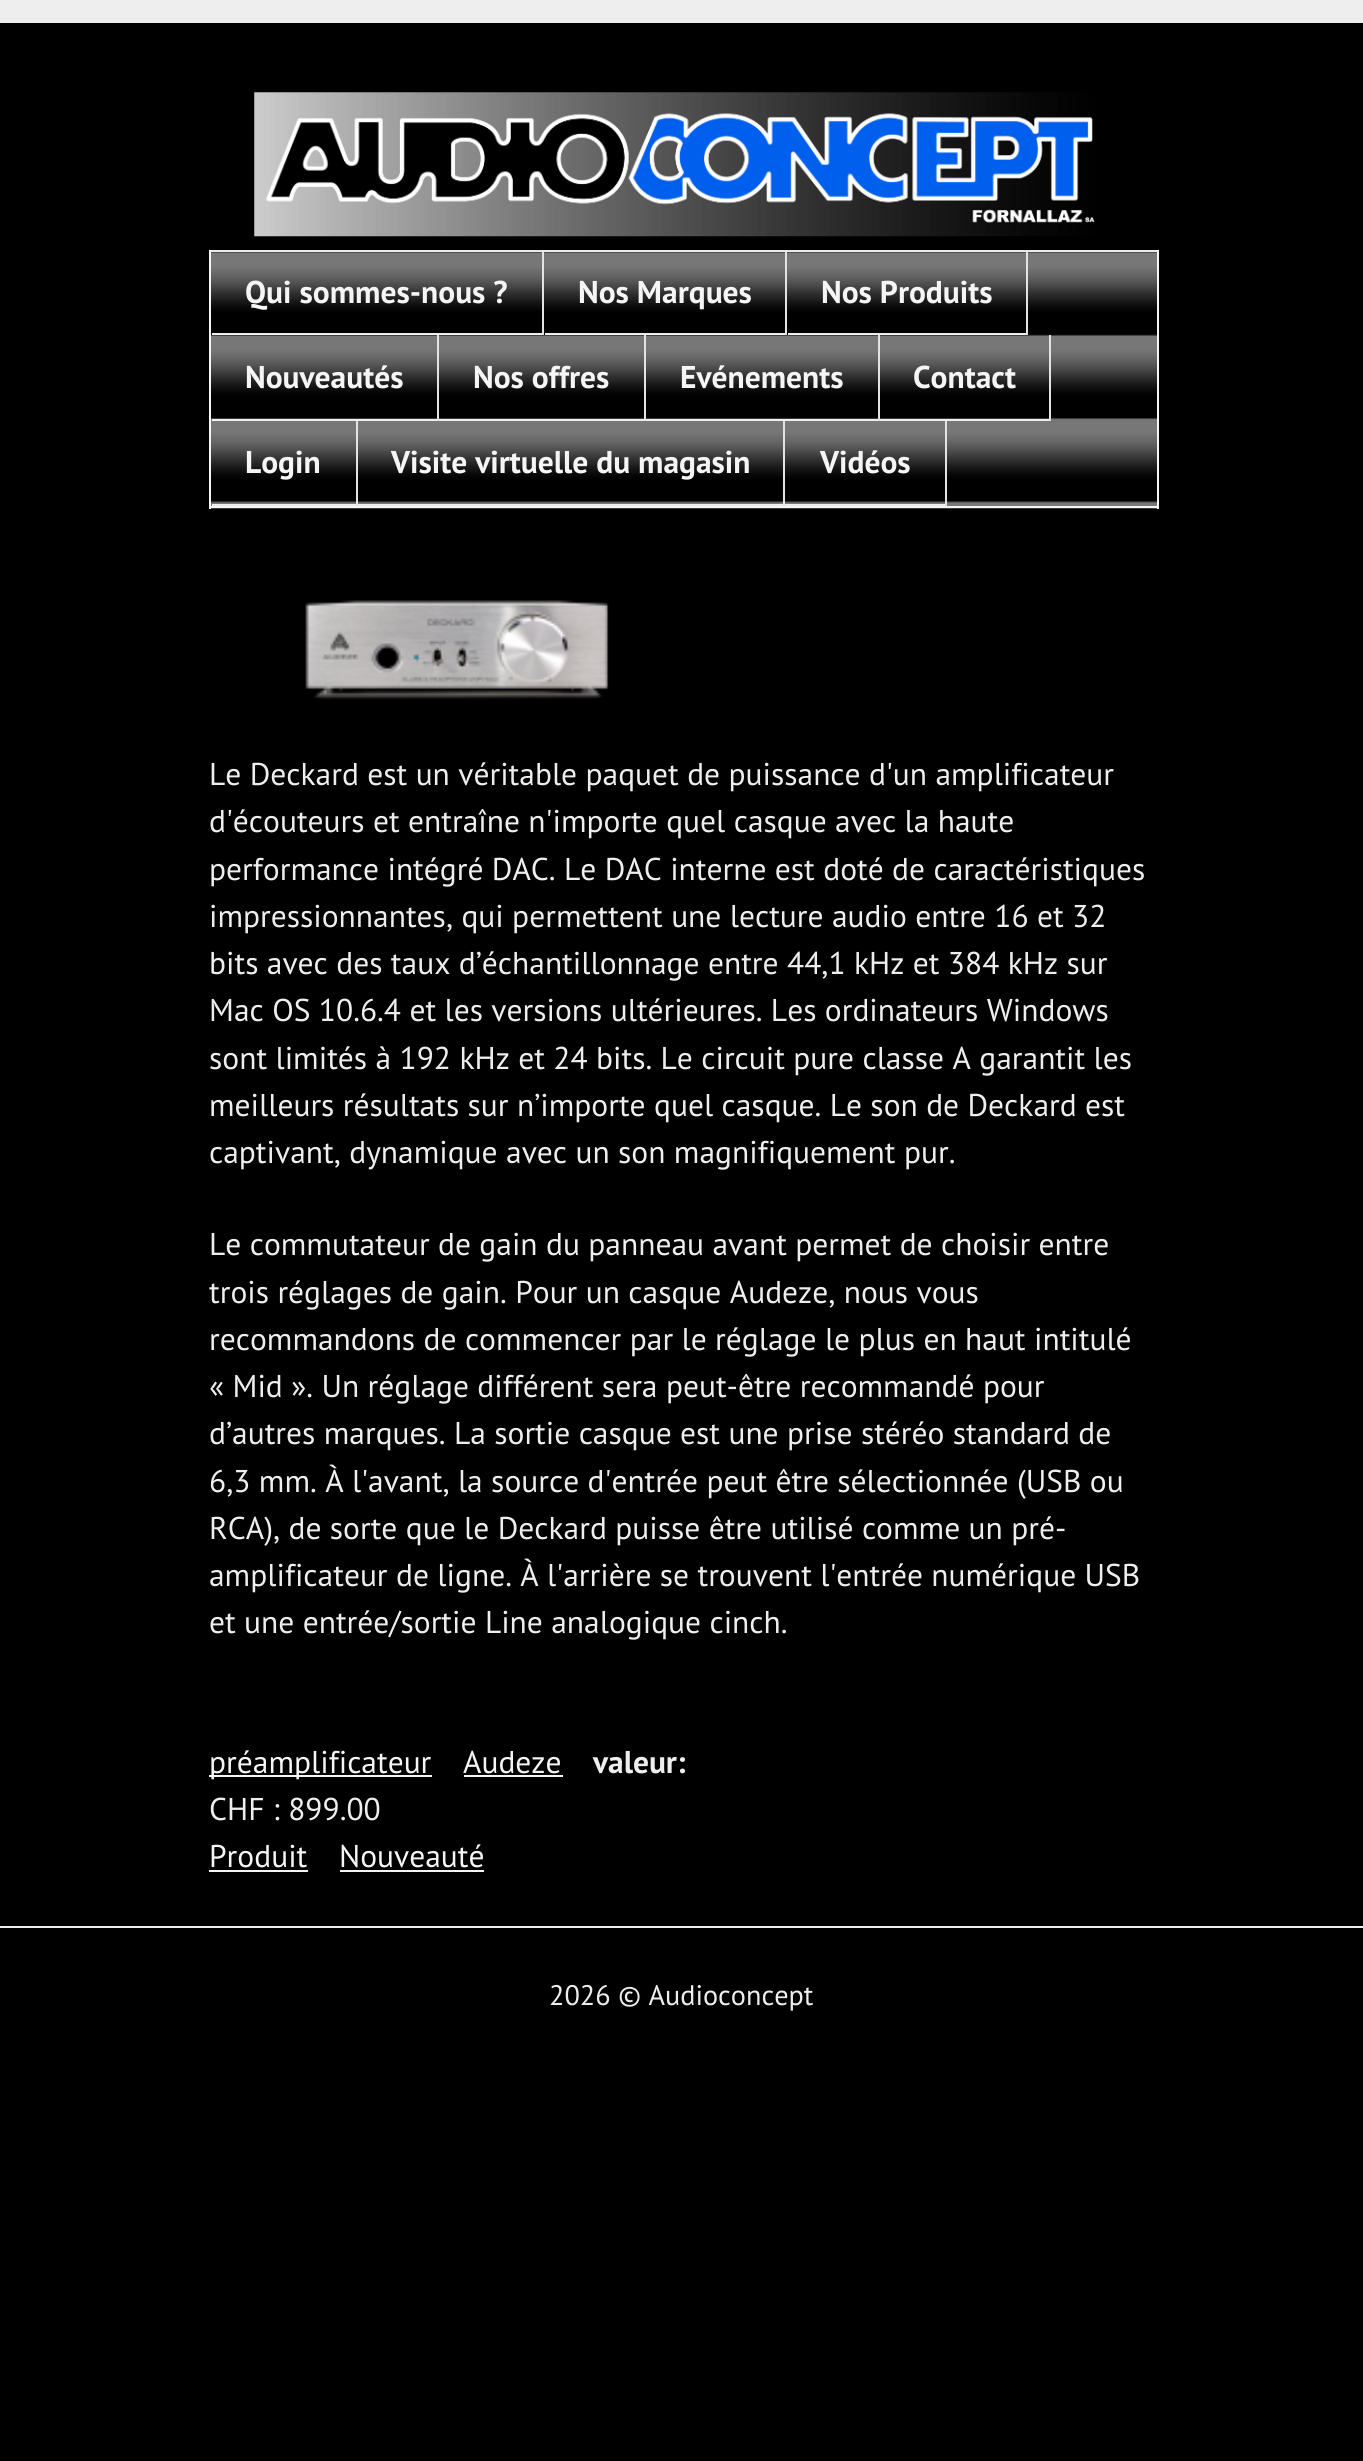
import math
import cairo

surface = cairo.ImageSurface(cairo.FORMAT_RGB24, 1363, 2461)
c = cairo.Context(surface)
options = cairo.FontOptions()
options.set_hint_metrics(cairo.HINT_METRICS_OFF)
options.set_hint_style(cairo.HINT_STYLE_NONE)
c.set_font_options(options)
c.set_miter_limit(4)
def C(code):
 c.set_source_rgb(*(v / 255 for v in bytes.fromhex(code[-6:])))
def F(family, size, italic, bold):
 c.select_font_face(family, cairo.FONT_SLANT_ITALIC if italic else cairo.FONT_SLANT_NORMAL, cairo.FONT_WEIGHT_BOLD if bold else cairo.FONT_WEIGHT_NORMAL)
 c.set_font_size(size)
def T(x, y, s):
 c.move_to(x, y)
 c.show_text(s)
def R(x, y, w, h):
 c.rectangle(x, y, w, h)
 c.fill()
def I(path, x, y, w, h):
 c.save()
 c.set_source_surface(cairo.ImageSurface.create_from_png(path), x, y)
 c.rectangle(x, y, w, h)
 c.fill()
 c.restore()
C('000000')
c.paint()
C('eeeeee')
R(0,0,1363,23)
I('1.png',254,92,841,145)
I('2.png',211,252,946,257)
C('eaeaea')
R(209,250,950,2)
C('f5f5f5')
R(1157,250,2,259)
R(209,506,950,2)
R(209,250,2,259)
C('e3e3e3')
R(542,252,2,83)
C('eeeeee')
R(212,333,330,2)
F('PT Sans',31.5,0,1)
C('f5f5f5')
T(245,303,'Qui sommes-nous ?')
C('e3e3e3')
R(785,252,2,83)
C('eeeeee')
R(545,333,240,2)
C('f5f5f5')
T(578,303,'Nos Marques')
C('e3e3e3')
R(1026,252,2,83)
C('eeeeee')
R(788,333,238,2)
C('f5f5f5')
T(821,303,'Nos Produits')
C('e3e3e3')
R(437,335,2,86)
C('eeeeee')
R(212,419,225,2)
C('f5f5f5')
T(245,388,'Nouveautés')
C('e3e3e3')
R(644,335,2,86)
C('eeeeee')
R(439,419,205,2)
C('f5f5f5')
T(473,388,'Nos offres')
C('e3e3e3')
R(878,335,2,86)
C('eeeeee')
R(646,419,232,2)
C('f5f5f5')
T(680,388,'Evénements')
C('e3e3e3')
R(1049,335,2,86)
C('eeeeee')
R(880,419,169,2)
C('f5f5f5')
T(913,388,'Contact')
C('e3e3e3')
R(356,421,2,85)
C('eeeeee')
R(212,504,144,2)
C('f5f5f5')
T(245,473,'Login')
C('e3e3e3')
R(783,421,2,85)
C('eeeeee')
R(358,504,425,2)
C('f5f5f5')
T(391,473,'Visite virtuelle du magasin')
C('e3e3e3')
R(945,421,2,85)
C('eeeeee')
R(785,504,160,2)
C('f5f5f5')
T(820,473,'Vidéos')
I('3.png',305,600,304,100)
F('PT Sans',31.5,0,0)
C('eeeeee')
T(209,785,'Le Deckard est un véritable paquet de puissance d\'un amplificateur')
T(209,832,'d\'écouteurs et entraîne n\'importe quel casque avec la haute')
T(209,880,'performance intégré DAC. Le DAC interne est doté de caractéristiques')
T(209,927,'impressionnantes, qui permettent une lecture audio entre 16 et 32')
T(209,974,'bits avec des taux d’échantillonnage entre 44,1 kHz et 384 kHz sur')
T(209,1021,'Mac OS 10.6.4 et les versions ultérieures. Les ordinateurs Windows')
T(209,1069,'sont limités à 192 kHz et 24 bits. Le circuit pure classe A garantit les')
T(209,1116,'meilleurs résultats sur n’importe quel casque. Le son de Deckard est')
T(209,1163,'captivant, dynamique avec un son magnifiquement pur.')
T(209,1255,'Le commutateur de gain du panneau avant permet de choisir entre')
T(209,1303,'trois réglages de gain. Pour un casque Audeze, nous vous')
T(209,1350,'recommandons de commencer par le réglage le plus en haut intitulé')
T(209,1397,'« Mid ». Un réglage différent sera peut-être recommandé pour')
T(209,1444,'d’autres marques. La sortie casque est une prise stéréo standard de')
T(209,1492,'6,3 mm. À l\'avant, la source d\'entrée peut être sélectionnée (USB ou')
T(209,1539,'RCA), de sorte que le Deckard puisse être utilisé comme un pré-')
T(209,1586,'amplificateur de ligne. À l\'arrière se trouvent l\'entrée numérique USB')
T(209,1633,'et une entrée/sortie Line analogique cinch.')
C('f5f5f5')
R(209,1775,223,2)
T(209,1773,'préamplificateur')
F('PT Sans',31.5,0,1)
C('eeeeee')
T(593,1773,'valeur:')
F('PT Sans',31.5,0,0)
T(209,1820,'CHF : 899.00')
C('f5f5f5')
T(463,1773,'Audeze')
R(464,1775,99,2)
T(209,1867,'Produit')
R(209,1870,99,2)
T(339,1867,'Nouveauté')
R(340,1870,144,2)
C('eeeeee')
R(0,1926,1363,2)
F('PT Sans',28.25,0,0)
T(549,2005,'2026 © Audioconcept')
surface.write_to_png('o.png')
